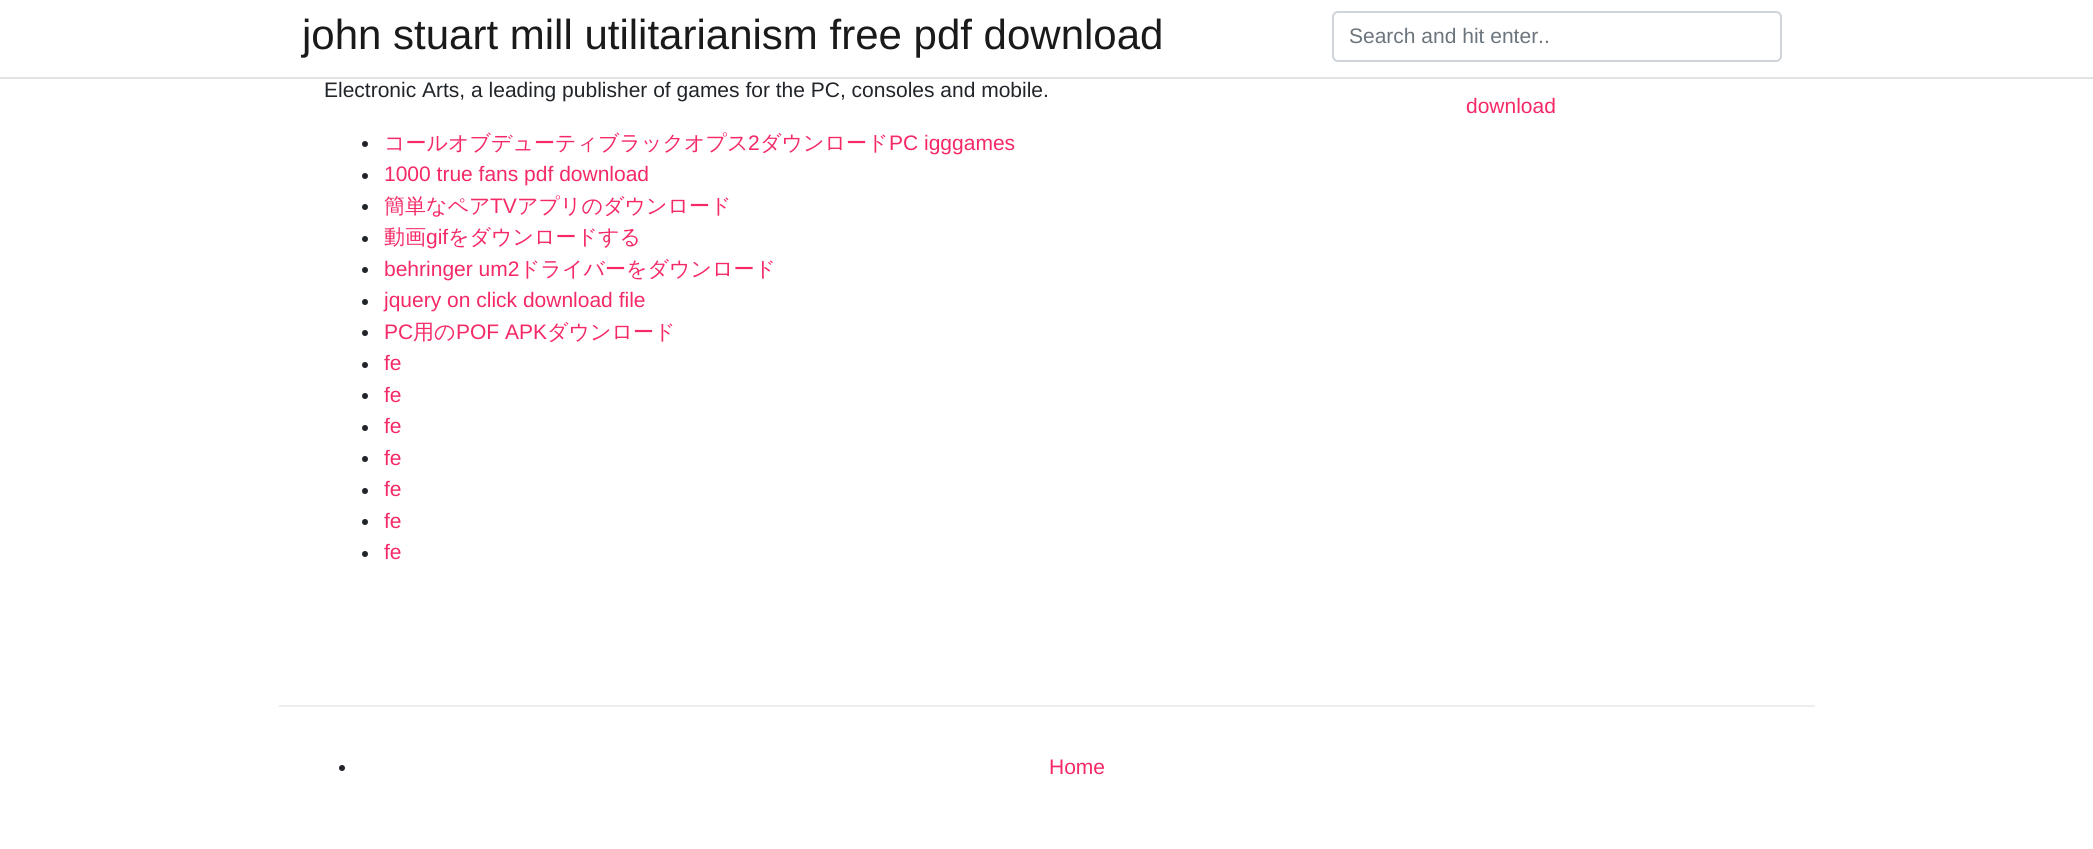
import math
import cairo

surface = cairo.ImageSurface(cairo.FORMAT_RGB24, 2093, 849)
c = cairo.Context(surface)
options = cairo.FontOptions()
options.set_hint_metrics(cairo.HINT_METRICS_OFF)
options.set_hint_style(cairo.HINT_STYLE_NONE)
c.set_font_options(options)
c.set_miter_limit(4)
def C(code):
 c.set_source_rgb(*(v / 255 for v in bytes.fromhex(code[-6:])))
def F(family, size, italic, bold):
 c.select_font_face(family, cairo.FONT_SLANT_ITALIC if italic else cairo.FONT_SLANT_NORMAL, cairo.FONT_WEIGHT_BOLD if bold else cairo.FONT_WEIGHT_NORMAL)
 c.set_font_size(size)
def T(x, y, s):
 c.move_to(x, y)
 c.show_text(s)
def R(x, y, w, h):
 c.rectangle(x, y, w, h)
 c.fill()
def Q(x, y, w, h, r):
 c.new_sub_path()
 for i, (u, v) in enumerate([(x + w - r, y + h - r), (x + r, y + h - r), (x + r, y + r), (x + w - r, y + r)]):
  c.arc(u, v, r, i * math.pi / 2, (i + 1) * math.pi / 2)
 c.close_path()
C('ffffff')
c.paint()
C('e1e2e3')
R(0,77,2093,2)
F('Liberation Sans',42,0,0)
C('1a1a1a')
T(302,49,'john stuart mill utilitarianism free pdf download')
Q(1333,12,448,49,5)
C('ced4da')
c.stroke()
F('Liberation Sans',21,0,0)
C('6c757d')
T(1349,43,'Search and hit enter..')
C('212529')
T(324,97,'Electronic Arts, a leading publisher of games for the PC, consoles and mobile.')
c.new_path()
c.arc(365,144,3,0,2 * math.pi)
c.fill()
F('WenQuanYi Zen Hei Medium',21,0,0)
C('f42966')
T(384,150,'コールオブデューティブラックオプス')
F('Liberation Sans',21,0,0)
T(748,150,'2')
F('WenQuanYi Zen Hei Medium',21,0,0)
T(760,150,'ダウンロード')
F('Liberation Sans',21,0,0)
T(889,150,'PC igggames')
C('212529')
c.new_path()
c.arc(365,176,3,0,2 * math.pi)
c.fill()
C('f42966')
T(384,181,'1000 true fans pdf download')
C('212529')
c.new_path()
c.arc(365,207,3,0,2 * math.pi)
c.fill()
F('WenQuanYi Zen Hei Medium',21,0,0)
C('f42966')
T(384,213,'簡単なペア')
F('Liberation Sans',21,0,0)
T(490,213,'TV')
F('WenQuanYi Zen Hei Medium',21,0,0)
T(517,213,'アプリのダウンロード')
C('212529')
c.new_path()
c.arc(365,239,3,0,2 * math.pi)
c.fill()
C('f42966')
T(384,244,'動画')
F('Liberation Sans',21,0,0)
T(426,244,'gif')
F('WenQuanYi Zen Hei Medium',21,0,0)
T(448,244,'をダウンロードする')
C('212529')
c.new_path()
c.arc(365,270,3,0,2 * math.pi)
c.fill()
F('Liberation Sans',21,0,0)
C('f42966')
T(384,276,'behringer um2')
F('WenQuanYi Zen Hei Medium',21,0,0)
T(519,276,'ドライバーをダウンロード')
C('212529')
c.new_path()
c.arc(365,302,3,0,2 * math.pi)
c.fill()
F('Liberation Sans',21,0,0)
C('f42966')
T(384,307,'jquery on click download file')
C('212529')
c.new_path()
c.arc(365,333,3,0,2 * math.pi)
c.fill()
C('f42966')
T(384,339,'PC')
F('WenQuanYi Zen Hei Medium',21,0,0)
T(413,339,'用の')
F('Liberation Sans',21,0,0)
T(456,339,'POF APK')
F('WenQuanYi Zen Hei Medium',21,0,0)
T(547,339,'ダウンロード')
C('212529')
c.new_path()
c.arc(365,365,3,0,2 * math.pi)
c.fill()
F('Liberation Sans',21,0,0)
C('f42966')
T(384,370,'fe')
C('212529')
c.new_path()
c.arc(365,396,3,0,2 * math.pi)
c.fill()
C('f42966')
T(384,402,'fe')
C('212529')
c.new_path()
c.arc(365,428,3,0,2 * math.pi)
c.fill()
C('f42966')
T(384,433,'fe')
C('212529')
c.new_path()
c.arc(365,459,3,0,2 * math.pi)
c.fill()
C('f42966')
T(384,465,'fe')
C('212529')
c.new_path()
c.arc(365,491,3,0,2 * math.pi)
c.fill()
C('f42966')
T(384,496,'fe')
C('212529')
c.new_path()
c.arc(365,522,3,0,2 * math.pi)
c.fill()
C('f42966')
T(384,528,'fe')
C('212529')
c.new_path()
c.arc(365,554,3,0,2 * math.pi)
c.fill()
C('f42966')
T(384,559,'fe')
T(1466,113,'download')
C('eeeeee')
R(279,705,1536,2)
C('212529')
c.new_path()
c.arc(342,768,3,0,2 * math.pi)
c.fill()
C('f42966')
T(1049,774,'Home')
surface.write_to_png('o.png')
